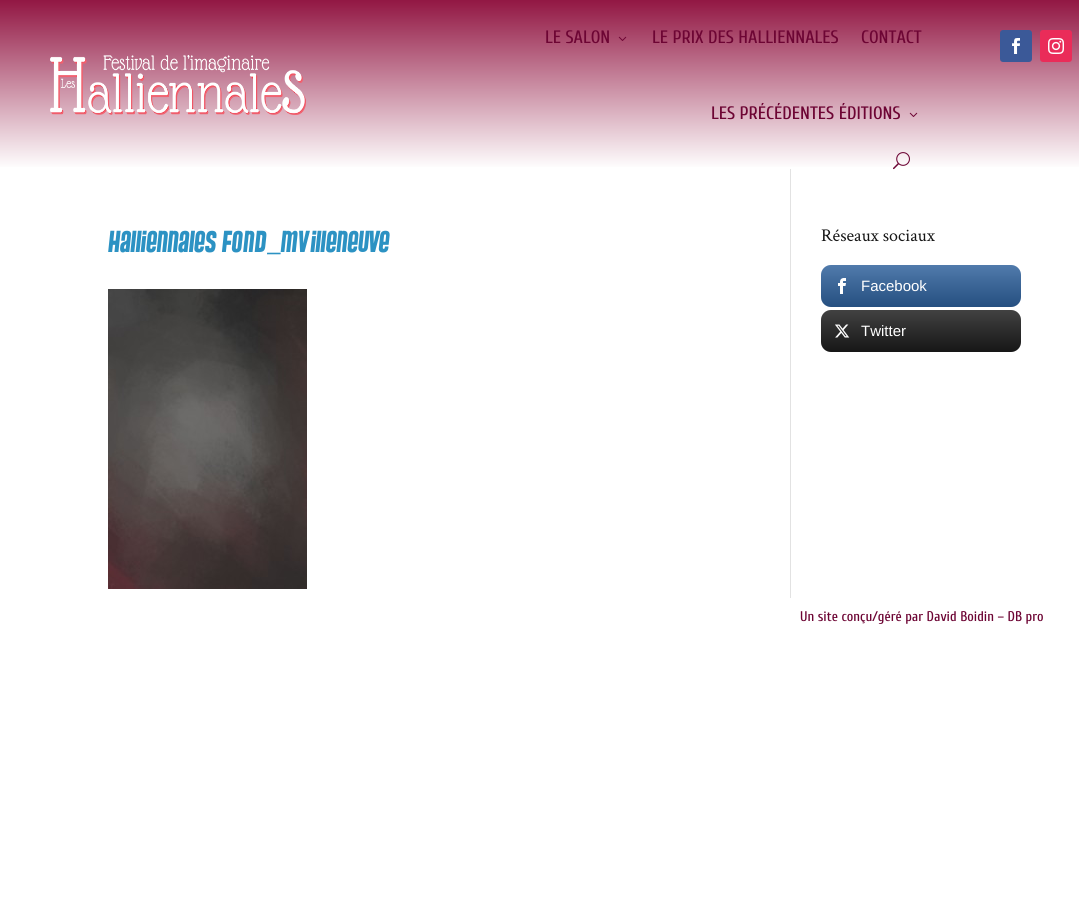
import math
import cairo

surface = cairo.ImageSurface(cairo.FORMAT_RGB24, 1079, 916)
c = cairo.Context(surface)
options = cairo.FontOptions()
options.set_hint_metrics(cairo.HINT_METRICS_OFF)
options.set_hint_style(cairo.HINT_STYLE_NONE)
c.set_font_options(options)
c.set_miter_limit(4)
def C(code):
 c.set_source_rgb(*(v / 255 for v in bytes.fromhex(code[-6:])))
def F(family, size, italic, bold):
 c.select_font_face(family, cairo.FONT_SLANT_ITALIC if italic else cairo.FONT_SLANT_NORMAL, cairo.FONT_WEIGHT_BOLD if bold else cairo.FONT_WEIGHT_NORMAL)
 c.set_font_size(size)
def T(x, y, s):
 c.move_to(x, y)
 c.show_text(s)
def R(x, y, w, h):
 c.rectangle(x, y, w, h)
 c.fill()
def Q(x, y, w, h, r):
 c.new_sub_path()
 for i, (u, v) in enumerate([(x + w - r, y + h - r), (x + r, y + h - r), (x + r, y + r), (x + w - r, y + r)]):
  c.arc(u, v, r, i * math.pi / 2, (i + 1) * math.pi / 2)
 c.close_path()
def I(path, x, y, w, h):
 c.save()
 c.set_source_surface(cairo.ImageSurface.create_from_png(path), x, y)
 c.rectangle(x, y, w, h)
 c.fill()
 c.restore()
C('ffffff')
c.paint()
gradient = cairo.LinearGradient(540,0,540,169)
gradient.add_color_stop_rgba(0,0.573,0.09,0.263,1)
gradient.add_color_stop_rgba(1,1,1,1,1)
c.set_source(gradient)
R(0,0,1079,167)
I('1.png',50,55,256,60)
F('Cuprum Medium',18,0,0)
C('6d0534')
T(545,43,'LE SALON')
I('2.png',618,36,9,5)
T(652,43,'LE PRIX DES HALLIENNALES')
T(861,43,'CONTACT')
T(711,119,'LES PRÉCÉDENTES ÉDITIONS')
I('3.png',909,112,9,5)
I('4.png',893,152,17,18)
C('3b5998')
Q(1000,30,32,32,3)
c.fill()
I('5.png',1012,38,8,16)
C('ea2c59')
Q(1040,30,32,32,3)
c.fill()
I('6.png',1048,38,16,16)
C('e2e2e2')
R(790,169,1,429)
F('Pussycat',32,0,0)
C('2c92c3')
T(108,252,'Halliennales FOND_MVilleneuve')
I('7.png',108,289,199,300)
F('Crimson Text',18,0,0)
C('161616')
T(821,241,'Réseaux sociaux')
C('2d5f9a')
Q(821,265,200,42,10)
c.fill()
gradient = cairo.LinearGradient(921,307,921,265)
gradient.add_color_stop_rgba(0,0,0,0,.17)
gradient.add_color_stop_rgba(1,1,1,1,.17)
c.set_source(gradient)
Q(821,265,200,42,10)
c.fill()
I('8.png',838,278,8,16)
F('Liberation Sans',15,0,0)
C('ffffff')
T(861,291,'Facebook')
C('1a1a1a')
Q(821,310,200,42,10)
c.fill()
gradient = cairo.LinearGradient(921,352,921,310)
gradient.add_color_stop_rgba(0,0,0,0,.17)
gradient.add_color_stop_rgba(1,1,1,1,.17)
c.set_source(gradient)
Q(821,310,200,42,10)
c.fill()
I('9.png',835,324,15,14)
C('ffffff')
T(861,336,'Twitter')
F('Cuprum Medium',14,0,0)
C('6d0534')
T(800,621,'Un site conçu/géré par David Boidin – DB pro')
surface.write_to_png('o.png')
